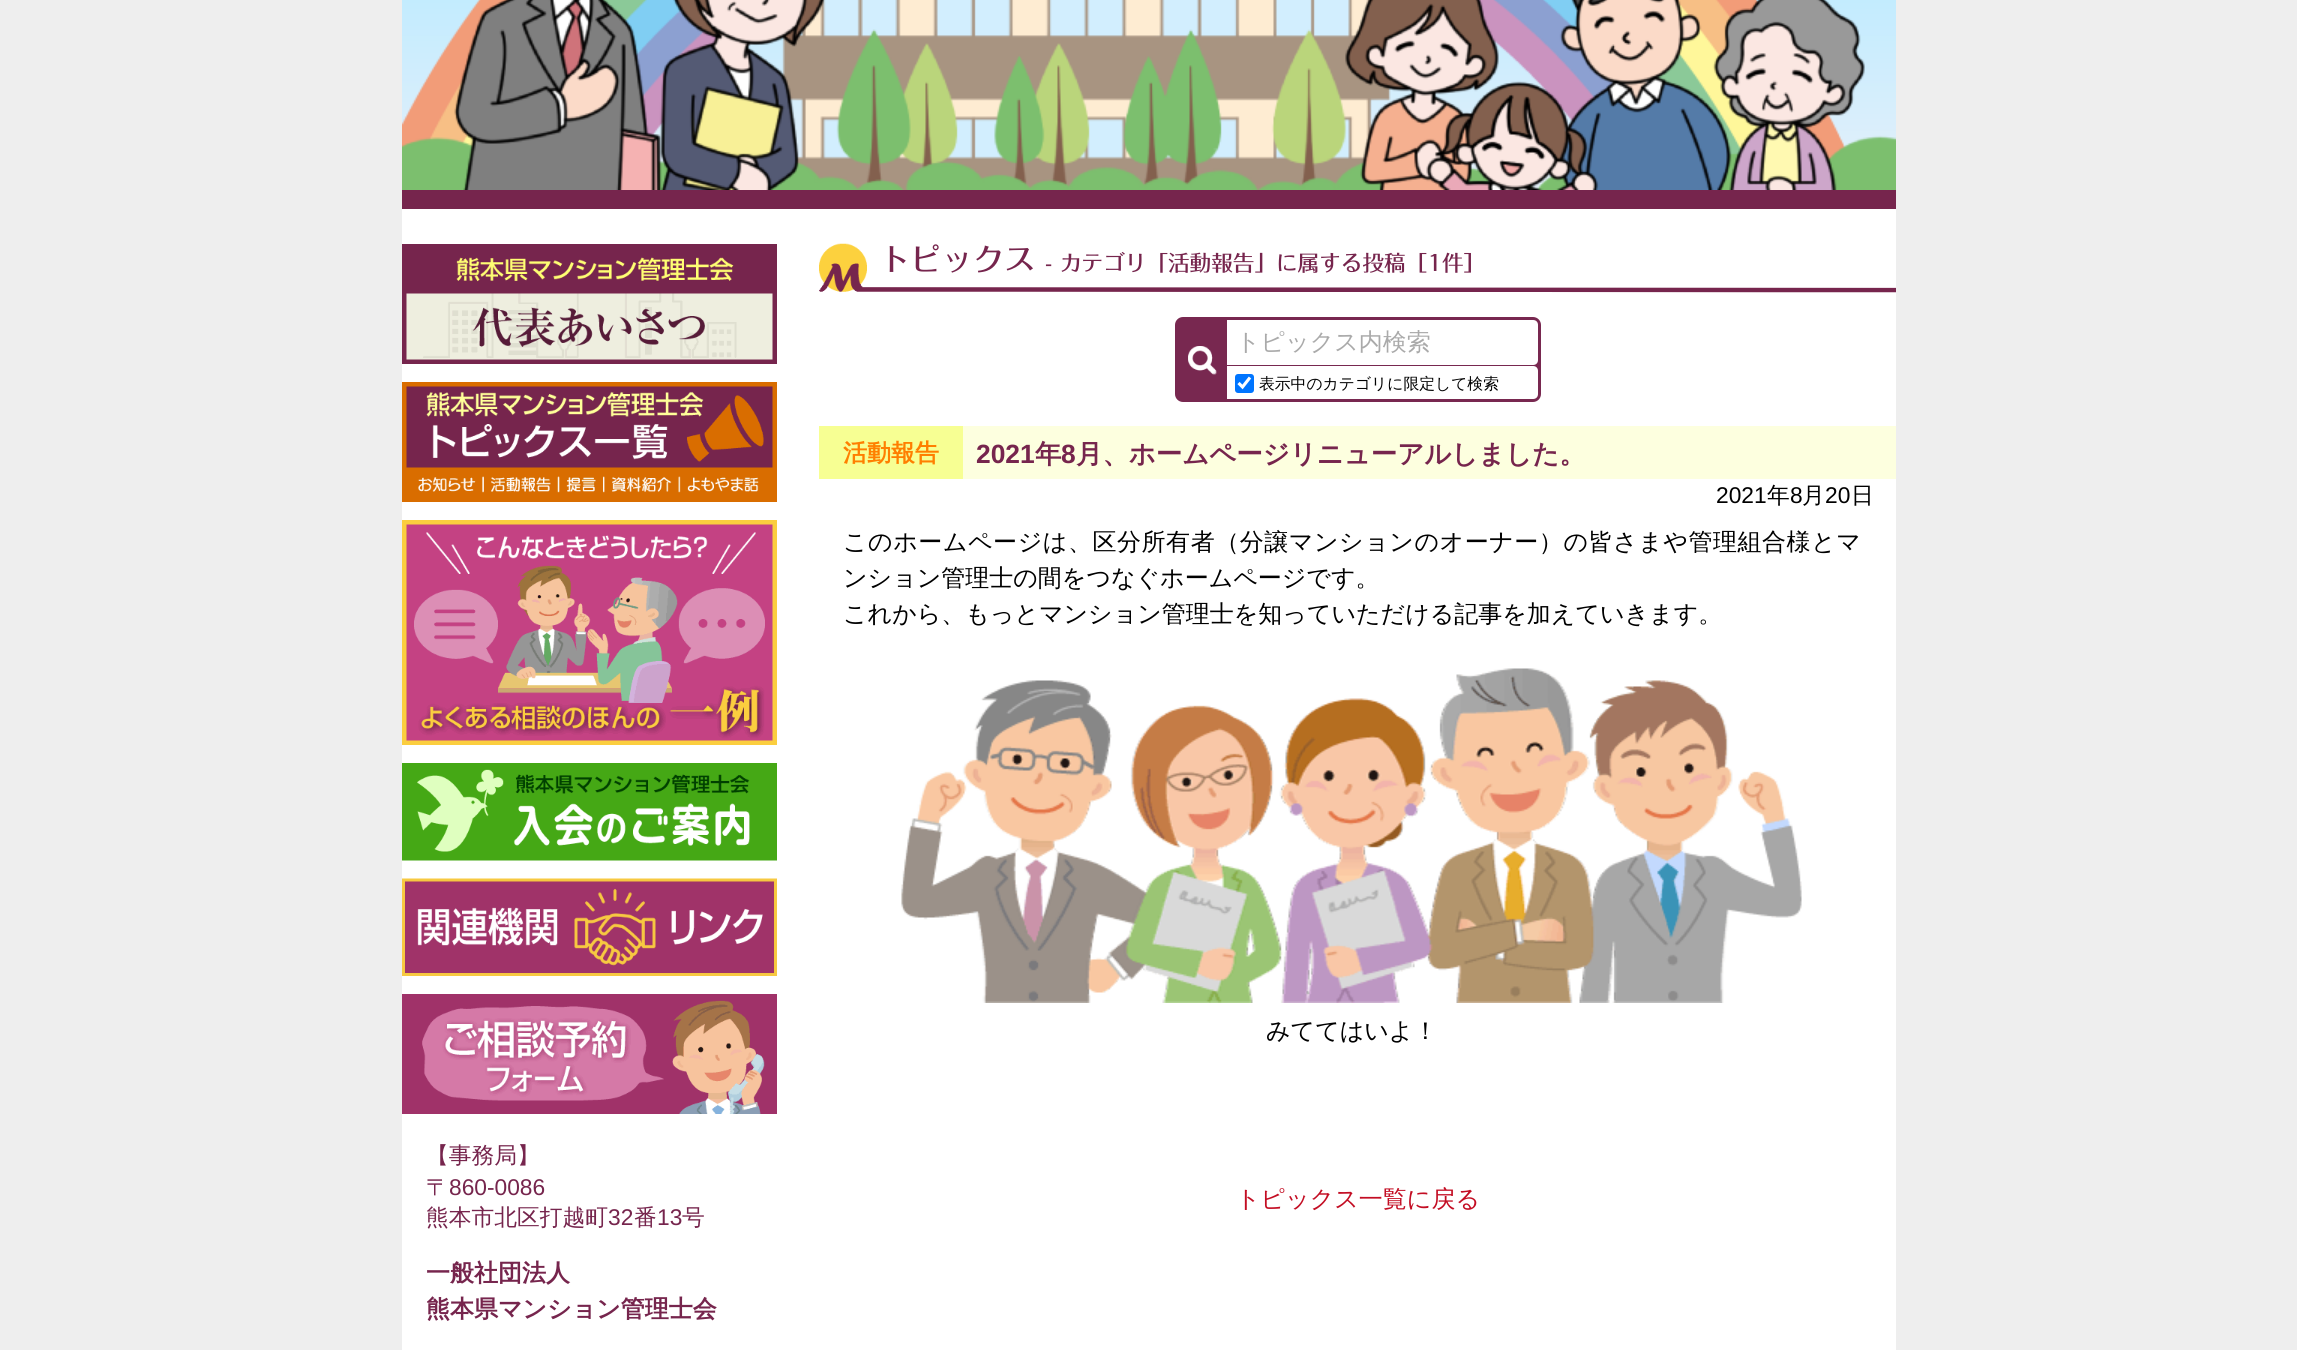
import math
import cairo

surface = cairo.ImageSurface(cairo.FORMAT_RGB24, 2297, 1350)
c = cairo.Context(surface)
options = cairo.FontOptions()
options.set_hint_metrics(cairo.HINT_METRICS_OFF)
options.set_hint_style(cairo.HINT_STYLE_NONE)
c.set_font_options(options)
c.set_miter_limit(4)
def C(code):
 c.set_source_rgb(*(v / 255 for v in bytes.fromhex(code[-6:])))
def F(family, size, italic, bold):
 c.select_font_face(family, cairo.FONT_SLANT_ITALIC if italic else cairo.FONT_SLANT_NORMAL, cairo.FONT_WEIGHT_BOLD if bold else cairo.FONT_WEIGHT_NORMAL)
 c.set_font_size(size)
def T(x, y, s):
 c.move_to(x, y)
 c.show_text(s)
def L(x, y, s, letter, word):
 c.move_to(x, y)
 for ch in s:
  c.show_text(ch)
  c.rel_move_to(letter + word * (ch == ' '), 0)
def R(x, y, w, h):
 c.rectangle(x, y, w, h)
 c.fill()
def Q(x, y, w, h, r):
 c.new_sub_path()
 for i, (u, v) in enumerate([(x + w - r, y + h - r), (x + r, y + h - r), (x + r, y + r), (x + w - r, y + r)]):
  c.arc(u, v, r, i * math.pi / 2, (i + 1) * math.pi / 2)
 c.close_path()
def I(path, x, y, w, h):
 c.save()
 c.set_source_surface(cairo.ImageSurface.create_from_png(path), x, y)
 c.rectangle(x, y, w, h)
 c.fill()
 c.restore()
C('eeeeee')
c.paint()
C('ffffff')
R(402,209,1494,1141)
C('76254d')
R(402,190,1494,19)
I('1.png',402,0,1494,190)
I('2.png',819,243,1077,50)
F('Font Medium',31.25,0,0)
T(879,271,'トピックス')
F('Liberation Sans',21.6,0,0)
T(1045,271,'-')
F('Font Medium',21.6,0,0)
T(1060,271,'カテゴリ「活動報告」に属する投稿［1件］')
C('782850')
Q(1176.5,318.5,363,82,6.5)
c.fill_preserve()
c.set_line_width(3)
c.stroke()
I('3.png',1188,346,29,29)
C('ffffff')
c.new_path()
c.move_to(1227,320)
c.line_to(1533,320)
c.curve_to(1536,320,1538,322,1538,325)
c.line_to(1538,360)
c.curve_to(1538,363,1536,365,1533,365)
c.line_to(1227,365)
c.close_path()
c.fill()
F('WenQuanYi Zen Hei Medium',24,0,0)
C('aaaaaa')
T(1236,350,'トピックス内検索')
C('ffffff')
c.new_path()
c.move_to(1227,366)
c.line_to(1533,366)
c.curve_to(1536,366,1538,368,1538,371)
c.line_to(1538,394)
c.curve_to(1538,397,1536,399,1533,399)
c.line_to(1227,399)
c.close_path()
c.fill()
C('0075ff')
Q(1235,374,19,19,3)
c.fill()
c.new_path()
c.move_to(1238.5,383)
c.line_to(1242.5,387)
c.line_to(1250,377.5)
C('ffffff')
c.set_line_width(3.1)
c.stroke()
F('WenQuanYi Zen Hei Medium',15.8,0,0)
C('000000')
T(1259,389,'表示中のカテゴリに限定して検索')
C('f7ff93')
R(819,426,144,53)
F('WenQuanYi Zen Hei',24,0,1)
C('ff7f00')
T(843,461,'活動報告')
C('fdffdf')
R(963,426,933,53)
F('Liberation Sans',26.4,0,1)
C('76254d')
T(976,463,'2021')
F('WenQuanYi Zen Hei',26.4,0,1)
T(1035,463,'年')
F('Liberation Sans',26.4,0,1)
T(1061,463,'8')
F('WenQuanYi Zen Hei',26.4,0,1)
T(1076,463,'月、ホームページリニューアルしました。')
F('Liberation Sans',22.75,0,0)
C('000000')
T(1716,503,'2021')
F('WenQuanYi Zen Hei Medium',22.75,0,0)
T(1767,503,'年')
F('Liberation Sans',22.75,0,0)
T(1790,503,'8')
F('WenQuanYi Zen Hei Medium',22.75,0,0)
T(1802,503,'月')
F('Liberation Sans',22.75,0,0)
T(1825,503,'20')
F('WenQuanYi Zen Hei Medium',22.75,0,0)
T(1851,503,'日')
F('WenQuanYi Zen Hei Medium',24,0,0)
L(843,550,'このホームページは、区分所有者（分譲マンションのオーナー）の皆さまや管理組合様とマ',.55,0)
T(843,586,'ンション管理士の間をつなぐホームページです。')
T(843,622,'これから、もっとマンション管理士を知っていただける記事を加えていきます。')
I('4.png',901,668,901,335)
T(1266,1039,'みててはいよ！')
C('c30d23')
T(1236,1207,'トピックス一覧に戻る')
I('5.png',402,244,375,120)
I('6.png',402,382,375,120)
I('7.png',402,520,375,225)
I('8.png',402,763,375,98)
I('9.png',402,878,375,98)
I('10.png',402,994,375,120)
F('WenQuanYi Zen Hei Medium',22.75,0,0)
C('76254d')
T(426,1163,'【事務局】')
T(426,1195,'〒')
F('Liberation Sans',22.75,0,0)
T(449,1195,'860-0086')
F('WenQuanYi Zen Hei Medium',22.75,0,0)
T(426,1225,'熊本市北区打越町')
F('Liberation Sans',22.75,0,0)
T(608,1225,'32')
F('WenQuanYi Zen Hei Medium',22.75,0,0)
T(634,1225,'番')
F('Liberation Sans',22.75,0,0)
T(657,1225,'13')
F('WenQuanYi Zen Hei Medium',22.75,0,0)
T(682,1225,'号')
F('WenQuanYi Zen Hei',24,0,1)
T(426,1281,'一般社団法人')
T(426,1317,'熊本県マンション管理士会')
surface.write_to_png('o.png')
